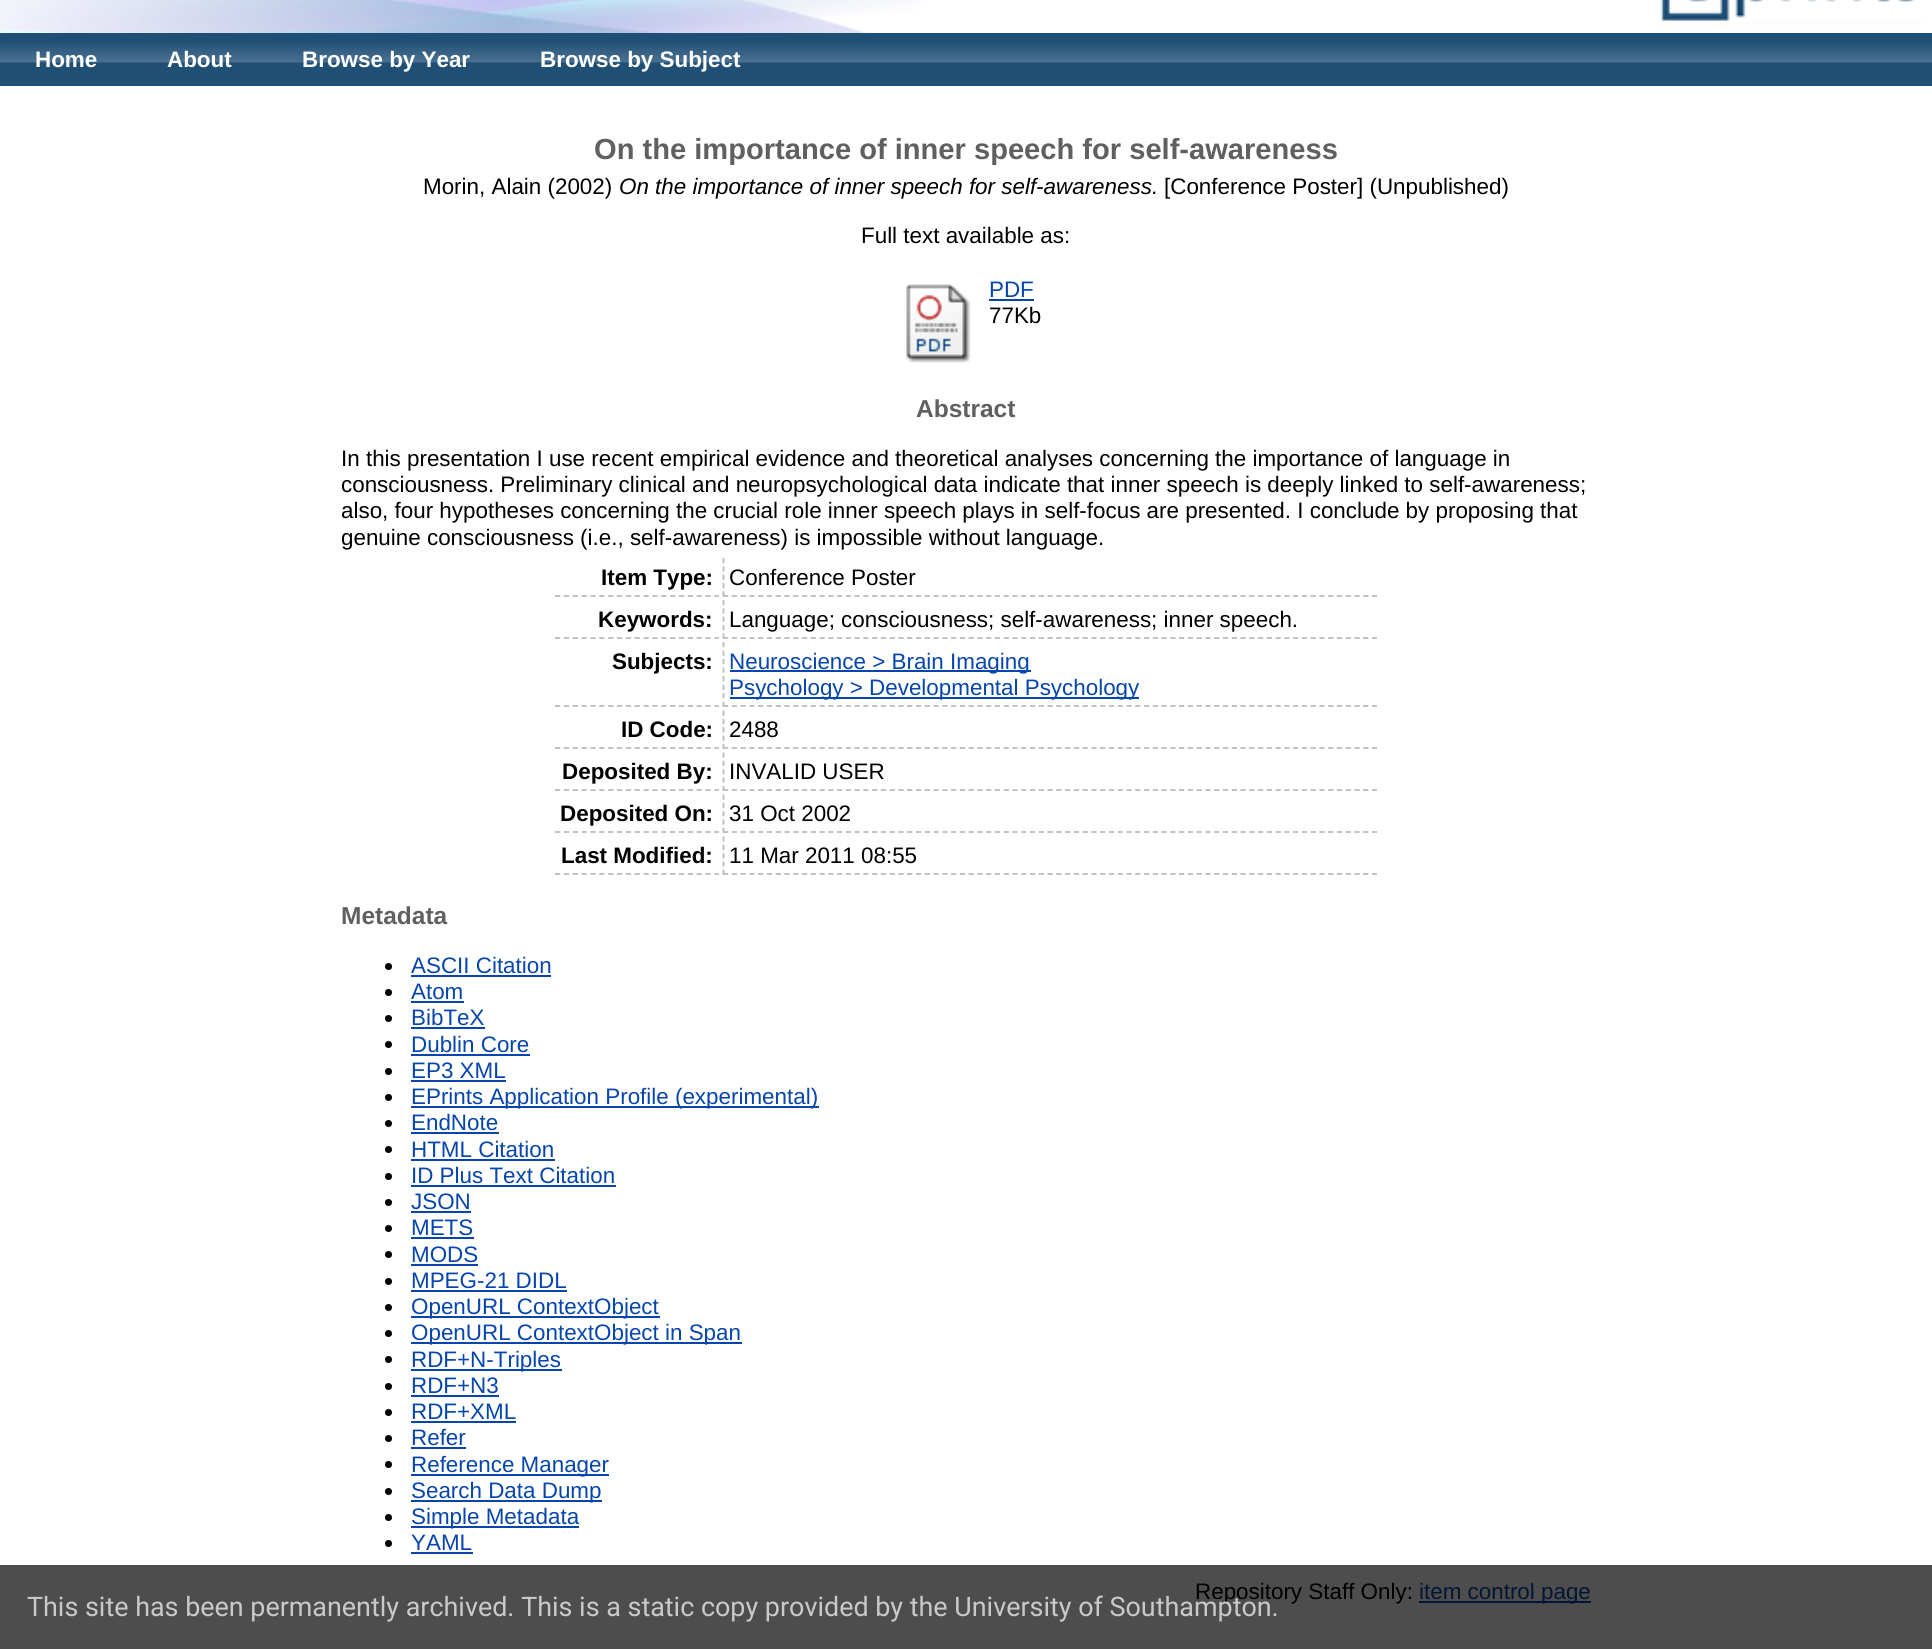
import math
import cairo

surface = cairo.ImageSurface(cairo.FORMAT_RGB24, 1932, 1649)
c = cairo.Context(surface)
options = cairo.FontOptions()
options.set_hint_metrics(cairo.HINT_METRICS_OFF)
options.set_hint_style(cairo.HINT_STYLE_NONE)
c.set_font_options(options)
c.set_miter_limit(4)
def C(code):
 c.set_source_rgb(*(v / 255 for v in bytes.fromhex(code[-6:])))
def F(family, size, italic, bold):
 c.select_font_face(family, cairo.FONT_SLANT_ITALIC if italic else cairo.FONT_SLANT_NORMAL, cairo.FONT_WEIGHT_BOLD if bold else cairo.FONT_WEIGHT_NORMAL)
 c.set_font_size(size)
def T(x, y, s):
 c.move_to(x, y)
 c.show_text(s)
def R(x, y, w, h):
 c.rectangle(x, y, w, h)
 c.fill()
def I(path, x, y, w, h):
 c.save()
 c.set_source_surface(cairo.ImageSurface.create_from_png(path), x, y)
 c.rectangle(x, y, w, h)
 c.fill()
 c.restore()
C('ffffff')
c.paint()
C('4d4d4d')
R(0,1565,1932,84)
I('1.png',0,0,921,33)
I('2.png',1656,0,269,26)
C('204f76')
R(0,33,1932,53)
I('3.png',0,43,1932,20)
F('Liberation Sans',22.4,0,1)
C('ffffff')
T(35,67,'Home')
T(167,67,'About')
T(302,67,'Browse by Year')
T(540,67,'Browse by Subject')
F('Liberation Sans',29.1,0,1)
C('606060')
T(594,159,'On the importance of inner speech for self-awareness')
F('Liberation Sans',22.4,0,0)
C('000000')
T(423,194,'Morin, Alain (2002)')
F('Liberation Sans',22.4,1,0)
T(619,194,'On the importance of inner speech for self-awareness.')
F('Liberation Sans',22.4,0,0)
T(1164,194,'[Conference Poster] (Unpublished)')
T(861,243,'Full text available as:')
I('4.png',906,284,65,79)
C('0645ad')
T(989,297,'PDF')
R(989,299,45,2)
C('000000')
T(989,323,'77Kb')
F('Liberation Sans',24.5,0,1)
C('606060')
T(916,417,'Abstract')
F('Liberation Sans',22.4,0,0)
C('000000')
T(341,466,'In this presentation I use recent empirical evidence and theoretical analyses concerning the importance of language in')
T(341,492,'consciousness. Preliminary clinical and neuropsychological data indicate that inner speech is deeply linked to self-awareness;')
T(341,518,'also, four hypotheses concerning the crucial role inner speech plays in self-focus are presented. I conclude by proposing that')
T(341,545,'genuine consciousness (i.e., self-awareness) is impossible without language.')
c.new_path()
c.move_to(555,596)
c.line_to(719,596)
C('bbbbbb')
c.set_line_width(1.8)
c.set_dash([5.25,3.6])
c.stroke()
F('Liberation Sans',22.4,0,1)
C('000000')
T(601,585,'Item Type:')
c.new_path()
c.move_to(723,596)
c.line_to(1377,596)
C('bbbbbb')
c.set_dash([5.25,3.52])
c.stroke()
c.new_path()
c.move_to(723.5,558)
c.line_to(723.5,597)
c.set_dash([5.25,3.06])
c.stroke()
F('Liberation Sans',22.4,0,0)
C('000000')
T(729,585,'Conference Poster')
c.new_path()
c.move_to(555,638)
c.line_to(719,638)
C('bbbbbb')
c.set_dash([5.25,3.6])
c.stroke()
F('Liberation Sans',22.4,0,1)
C('000000')
T(598,627,'Keywords:')
c.new_path()
c.move_to(723,638)
c.line_to(1377,638)
C('bbbbbb')
c.set_dash([5.25,3.52])
c.stroke()
c.new_path()
c.move_to(723.5,600)
c.line_to(723.5,639)
c.set_dash([5.25,3.06])
c.stroke()
F('Liberation Sans',22.4,0,0)
C('000000')
T(729,627,'Language; consciousness; self-awareness; inner speech.')
c.new_path()
c.move_to(555,706)
c.line_to(719,706)
C('bbbbbb')
c.set_dash([5.25,3.6])
c.stroke()
F('Liberation Sans',22.4,0,1)
C('000000')
T(612,669,'Subjects:')
c.new_path()
c.move_to(723,706)
c.line_to(1377,706)
C('bbbbbb')
c.set_dash([5.25,3.52])
c.stroke()
c.new_path()
c.move_to(723.5,642)
c.line_to(723.5,707)
c.set_dash([5.25,3.26])
c.stroke()
C('0645ad')
R(730,670,301,2)
F('Liberation Sans',22.4,0,0)
T(729,669,'Neuroscience > Brain Imaging')
R(730,697,409,2)
T(729,695,'Psychology > Developmental Psychology')
c.new_path()
c.move_to(555,748)
c.line_to(719,748)
C('bbbbbb')
c.set_dash([5.25,3.6])
c.stroke()
F('Liberation Sans',22.4,0,1)
C('000000')
T(621,737,'ID Code:')
c.new_path()
c.move_to(723,748)
c.line_to(1377,748)
C('bbbbbb')
c.set_dash([5.25,3.52])
c.stroke()
c.new_path()
c.move_to(723.5,710.5)
c.line_to(723.5,749)
c.set_dash([5.25,3.06])
c.stroke()
F('Liberation Sans',22.4,0,0)
C('000000')
T(729,737,'2488')
c.new_path()
c.move_to(555,790)
c.line_to(719,790)
C('bbbbbb')
c.set_dash([5.25,3.6])
c.stroke()
F('Liberation Sans',22.4,0,1)
C('000000')
T(562,779,'Deposited By:')
c.new_path()
c.move_to(723,790)
c.line_to(1377,790)
C('bbbbbb')
c.set_dash([5.25,3.52])
c.stroke()
c.new_path()
c.move_to(723.5,752.5)
c.line_to(723.5,791)
c.set_dash([5.25,3.06])
c.stroke()
F('Liberation Sans',22.4,0,0)
C('000000')
T(729,779,'INVALID USER')
c.new_path()
c.move_to(555,832)
c.line_to(719,832)
C('bbbbbb')
c.set_dash([5.25,3.6])
c.stroke()
F('Liberation Sans',22.4,0,1)
C('000000')
T(560,821,'Deposited On:')
c.new_path()
c.move_to(723,832)
c.line_to(1377,832)
C('bbbbbb')
c.set_dash([5.25,3.52])
c.stroke()
c.new_path()
c.move_to(723.5,794.5)
c.line_to(723.5,833)
c.set_dash([5.25,3.06])
c.stroke()
F('Liberation Sans',22.4,0,0)
C('000000')
T(729,821,'31 Oct 2002')
c.new_path()
c.move_to(555,874)
c.line_to(719,874)
C('bbbbbb')
c.set_dash([5.25,3.6])
c.stroke()
F('Liberation Sans',22.4,0,1)
C('000000')
T(561,863,'Last Modified:')
c.new_path()
c.move_to(723,874)
c.line_to(1377,874)
C('bbbbbb')
c.set_dash([5.25,3.52])
c.stroke()
c.new_path()
c.move_to(723.5,836.5)
c.line_to(723.5,875)
c.set_dash([5.25,3.06])
c.stroke()
F('Liberation Sans',22.4,0,0)
C('000000')
T(729,863,'11 Mar 2011 08:55')
F('Liberation Sans',24.5,0,1)
C('606060')
T(341,924,'Metadata')
C('000000')
c.new_path()
c.arc(388.5,966.5,3.5,0,2 * math.pi)
c.fill()
F('Liberation Sans',22.4,0,0)
C('0645ad')
T(411,973,'ASCII Citation')
R(411,975,140,2)
C('000000')
c.new_path()
c.arc(388.5,992.5,3.5,0,2 * math.pi)
c.fill()
C('0645ad')
T(411,999,'Atom')
R(411,1001,53,2)
C('000000')
c.new_path()
c.arc(388.5,1018.5,3.5,0,2 * math.pi)
c.fill()
C('0645ad')
T(411,1025,'BibTeX')
R(411,1027,74,2)
C('000000')
c.new_path()
c.arc(388.5,1044.5,3.5,0,2 * math.pi)
c.fill()
C('0645ad')
T(411,1052,'Dublin Core')
R(411,1054,119,2)
C('000000')
c.new_path()
c.arc(388.5,1071.5,3.5,0,2 * math.pi)
c.fill()
C('0645ad')
T(411,1078,'EP3 XML')
R(411,1080,95,2)
C('000000')
c.new_path()
c.arc(388.5,1097.5,3.5,0,2 * math.pi)
c.fill()
C('0645ad')
R(411,1106,408,2)
T(411,1104,'EPrints Application Profile (experimental)')
C('000000')
c.new_path()
c.arc(388.5,1123.5,3.5,0,2 * math.pi)
c.fill()
C('0645ad')
T(411,1130,'EndNote')
R(411,1132,88,2)
C('000000')
c.new_path()
c.arc(388.5,1149.5,3.5,0,2 * math.pi)
c.fill()
C('0645ad')
T(411,1157,'HTML Citation')
R(411,1159,144,2)
C('000000')
c.new_path()
c.arc(388.5,1176.5,3.5,0,2 * math.pi)
c.fill()
C('0645ad')
T(411,1183,'ID Plus Text Citation')
R(411,1185,205,2)
C('000000')
c.new_path()
c.arc(388.5,1202.5,3.5,0,2 * math.pi)
c.fill()
C('0645ad')
T(411,1209,'JSON')
R(411,1211,60,2)
C('000000')
c.new_path()
c.arc(388.5,1228.5,3.5,0,2 * math.pi)
c.fill()
C('0645ad')
T(411,1235,'METS')
R(411,1237,63,2)
C('000000')
c.new_path()
c.arc(388.5,1254.5,3.5,0,2 * math.pi)
c.fill()
C('0645ad')
T(411,1262,'MODS')
R(411,1264,67,2)
C('000000')
c.new_path()
c.arc(388.5,1281.5,3.5,0,2 * math.pi)
c.fill()
C('0645ad')
T(411,1288,'MPEG-21 DIDL')
R(411,1290,156,2)
C('000000')
c.new_path()
c.arc(388.5,1307.5,3.5,0,2 * math.pi)
c.fill()
C('0645ad')
R(411,1316,249,2)
T(411,1314,'OpenURL ContextObject')
C('000000')
c.new_path()
c.arc(388.5,1333.5,3.5,0,2 * math.pi)
c.fill()
C('0645ad')
R(411,1342,331,2)
T(411,1340,'OpenURL ContextObject in Span')
C('000000')
c.new_path()
c.arc(388.5,1359.5,3.5,0,2 * math.pi)
c.fill()
C('0645ad')
R(411,1369,151,2)
T(411,1367,'RDF+N-Triples')
C('000000')
c.new_path()
c.arc(388.5,1386.5,3.5,0,2 * math.pi)
c.fill()
C('0645ad')
T(411,1393,'RDF+N3')
R(411,1395,88,2)
C('000000')
c.new_path()
c.arc(388.5,1412.5,3.5,0,2 * math.pi)
c.fill()
C('0645ad')
T(411,1419,'RDF+XML')
R(411,1421,105,2)
C('000000')
c.new_path()
c.arc(388.5,1438.5,3.5,0,2 * math.pi)
c.fill()
C('0645ad')
T(411,1445,'Refer')
R(411,1447,55,2)
C('000000')
c.new_path()
c.arc(388.5,1464.5,3.5,0,2 * math.pi)
c.fill()
C('0645ad')
R(411,1474,198,2)
T(411,1472,'Reference Manager')
C('000000')
c.new_path()
c.arc(388.5,1491.5,3.5,0,2 * math.pi)
c.fill()
C('0645ad')
R(411,1500,191,2)
T(411,1498,'Search Data Dump')
C('000000')
c.new_path()
c.arc(388.5,1517.5,3.5,0,2 * math.pi)
c.fill()
C('0645ad')
R(411,1526,168,2)
T(411,1524,'Simple Metadata')
C('000000')
c.new_path()
c.arc(388.5,1543.5,3.5,0,2 * math.pi)
c.fill()
C('0645ad')
T(411,1550,'YAML')
R(411,1552,62,2)
C('000000')
T(1195,1599,'Repository Staff Only:')
C('021534')
R(1419,1601,172,2)
T(1419,1599,'item control page')
F('Roboto',26.9,0,0)
C('c9c9c9')
T(27,1616,'This site has been permanently archived. This is a static copy provided by the University of Southampton.')
surface.write_to_png('o.png')
